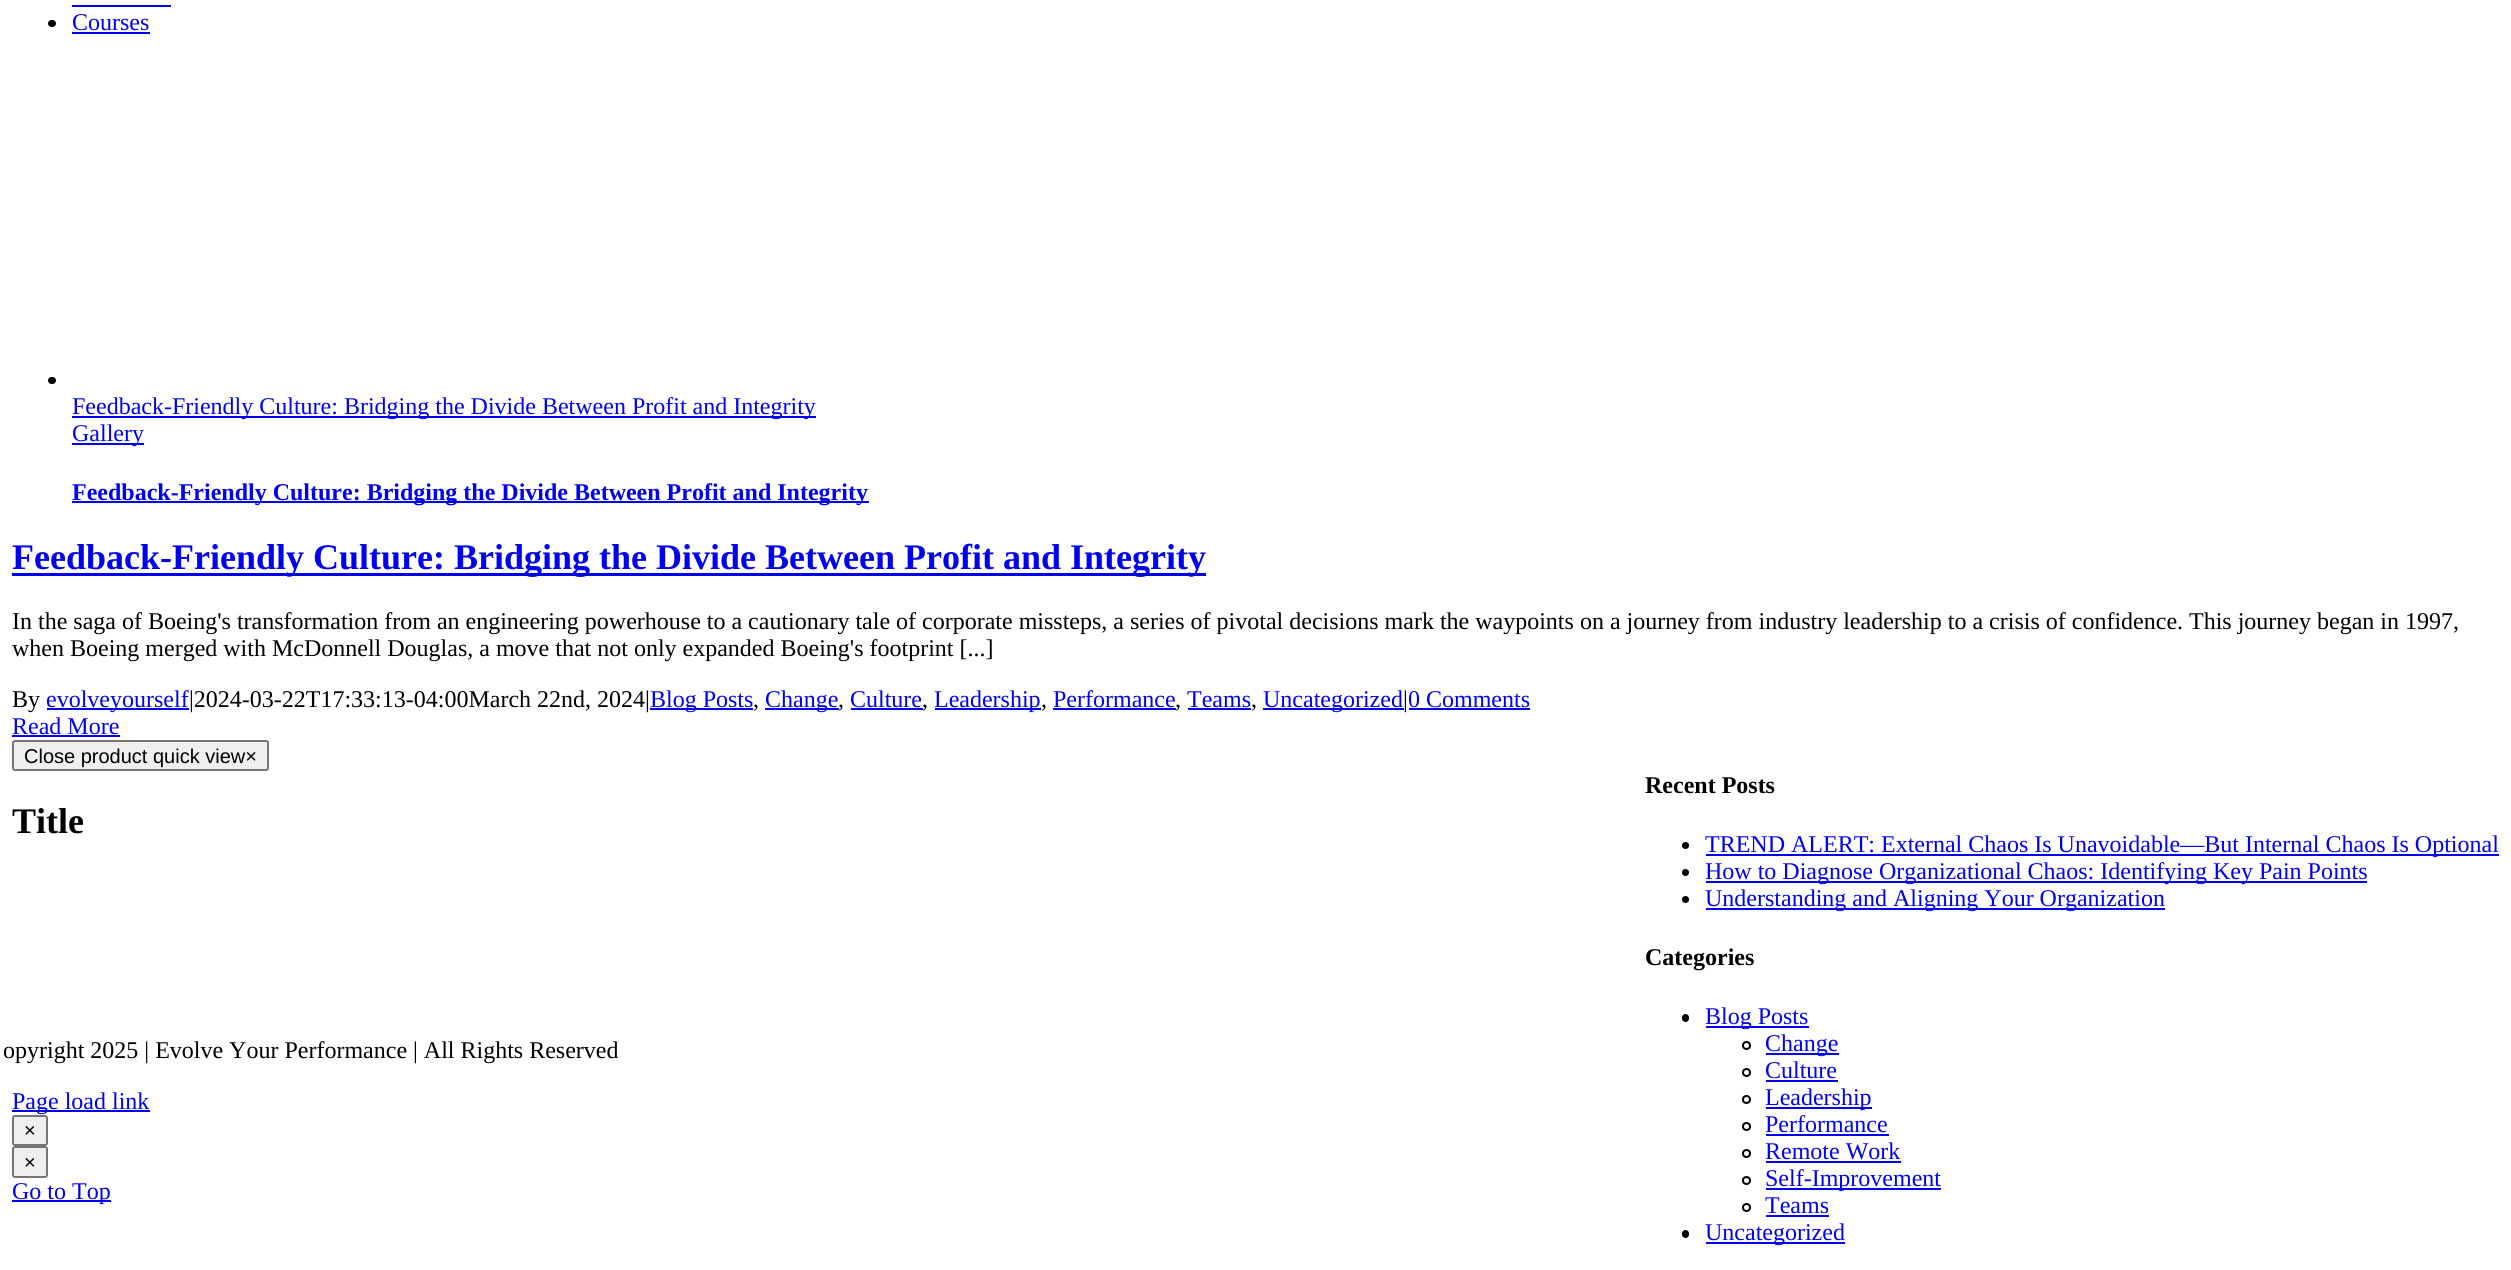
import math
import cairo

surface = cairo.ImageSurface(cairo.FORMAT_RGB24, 2511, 1270)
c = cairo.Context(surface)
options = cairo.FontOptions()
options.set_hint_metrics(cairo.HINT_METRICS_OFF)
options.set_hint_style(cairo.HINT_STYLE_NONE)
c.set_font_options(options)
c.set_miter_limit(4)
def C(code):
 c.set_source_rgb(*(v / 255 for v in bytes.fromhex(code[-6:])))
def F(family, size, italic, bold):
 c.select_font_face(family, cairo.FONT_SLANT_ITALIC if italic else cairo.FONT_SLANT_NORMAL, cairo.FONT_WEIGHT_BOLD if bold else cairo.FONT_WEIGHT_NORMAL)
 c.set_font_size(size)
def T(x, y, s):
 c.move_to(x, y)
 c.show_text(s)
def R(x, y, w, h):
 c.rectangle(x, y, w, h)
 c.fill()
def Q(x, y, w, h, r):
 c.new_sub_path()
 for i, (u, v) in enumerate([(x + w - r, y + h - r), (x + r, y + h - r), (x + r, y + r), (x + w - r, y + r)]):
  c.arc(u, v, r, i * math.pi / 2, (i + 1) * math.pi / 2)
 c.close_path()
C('ffffff')
c.paint()
C('0000ee')
R(72,5,99,2)
C('000000')
Q(48,20,8,7,3.5)
c.fill()
F('Liberation Serif',24,0,0)
C('0000ee')
T(72,30,'Courses')
R(72,32,78,2)
C('000000')
Q(48,377,8,7,3.5)
c.fill()
C('0000ee')
R(72,416,744,2)
T(72,414,'Feedback-Friendly Culture: Bridging the Divide Between Profit and Integrity')
R(72,443,72,2)
T(72,441,'Gallery')
R(72,501,797,2)
F('Liberation Serif',24,0,1)
T(72,500,'Feedback-Friendly Culture: Bridging the Divide Between Profit and Integrity')
R(12,573,1194,3)
F('Liberation Serif',36,0,1)
T(12,569,'Feedback-Friendly Culture: Bridging the Divide Between Profit and Integrity')
F('Liberation Serif',24,0,0)
C('000000')
T(12,629,'In the saga of Boeing\'s transformation from an engineering powerhouse to a cautionary tale of corporate missteps, a series of pivotal decisions mark the waypoints on a journey from industry leadership to a crisis of confidence. This journey began in 1997,')
T(12,656,'when Boeing merged with McDonnell Douglas, a move that not only expanded Boeing\'s footprint [...]')
T(12,707,'By')
C('0000ee')
R(47,708,142,2)
T(46,707,'evolveyourself')
C('000000')
T(189,707,'|2024-03-22T17:33:13-04:00March 22nd, 2024|')
C('0000ee')
R(650,708,103,2)
T(650,707,'Blog Posts')
C('000000')
T(753,707,',')
C('0000ee')
R(765,708,74,2)
T(765,707,'Change')
C('000000')
T(838,707,',')
C('0000ee')
T(850,707,'Culture')
R(851,708,72,2)
C('000000')
T(922,707,',')
C('0000ee')
R(935,708,106,2)
T(934,707,'Leadership')
C('000000')
T(1041,707,',')
C('0000ee')
T(1053,707,'Performance')
R(1053,708,123,2)
C('000000')
T(1175,707,',')
C('0000ee')
T(1187,707,'Teams')
R(1188,708,63,2)
C('000000')
T(1251,707,',')
C('0000ee')
R(1263,708,141,2)
T(1263,707,'Uncategorized')
C('000000')
T(1403,707,'|')
C('0000ee')
T(1408,707,'0 Comments')
R(1409,708,121,2)
T(12,734,'Read More')
R(12,735,108,2)
C('efefef')
Q(13,741,255,29,2)
c.fill_preserve()
C('767676')
c.stroke()
F('Liberation Sans',20,0,0)
C('000000')
T(24,763,'Close product quick view×')
F('Liberation Serif',36,0,1)
T(12,833,'Title')
F('Liberation Serif',24,0,1)
T(1645,793,'Recent Posts')
c.new_path()
c.arc(1685.5,845.5,3.5,0,2 * math.pi)
c.fill()
C('0000ee')
R(1706,854,793,2)
F('Liberation Serif',24,0,0)
T(1705,852,'TREND ALERT: External Chaos Is Unavoidable—But Internal Chaos Is Optional')
C('000000')
c.new_path()
c.arc(1685.5,872.5,3.5,0,2 * math.pi)
c.fill()
C('0000ee')
R(1706,881,661,2)
T(1705,879,'How to Diagnose Organizational Chaos: Identifying Key Pain Points')
C('000000')
c.new_path()
c.arc(1685.5,899.5,3.5,0,2 * math.pi)
c.fill()
C('0000ee')
R(1706,908,459,2)
T(1705,906,'Understanding and Aligning Your Organization')
F('Liberation Serif',24,0,1)
C('000000')
T(1645,965,'Categories')
Q(1682,1014,7,8,3.5)
c.fill()
C('0000ee')
R(1706,1026,103,2)
F('Liberation Serif',24,0,0)
T(1705,1024,'Blog Posts')
c.new_path()
c.arc(1746.5,1045.5,3.5,0,2 * math.pi)
C('000000')
c.stroke()
C('0000ee')
R(1766,1053,73,2)
T(1765,1051,'Change')
c.new_path()
c.arc(1746.5,1072.5,3.5,0,2 * math.pi)
C('000000')
c.stroke()
C('0000ee')
T(1765,1078,'Culture')
R(1766,1080,72,2)
c.new_path()
c.arc(1746.5,1099.5,3.5,0,2 * math.pi)
C('000000')
c.stroke()
C('0000ee')
R(1766,1107,106,2)
T(1765,1105,'Leadership')
c.new_path()
c.arc(1746.5,1126.5,3.5,0,2 * math.pi)
C('000000')
c.stroke()
C('0000ee')
T(1765,1132,'Performance')
R(1766,1134,123,2)
c.new_path()
c.arc(1746.5,1153.5,3.5,0,2 * math.pi)
C('000000')
c.stroke()
C('0000ee')
T(1765,1159,'Remote Work')
R(1766,1161,135,2)
c.new_path()
c.arc(1746.5,1180.5,3.5,0,2 * math.pi)
C('000000')
c.stroke()
C('0000ee')
R(1766,1188,175,2)
T(1765,1186,'Self-Improvement')
c.new_path()
c.arc(1746.5,1207.5,3.5,0,2 * math.pi)
C('000000')
c.stroke()
C('0000ee')
T(1765,1213,'Teams')
R(1766,1215,63,2)
C('000000')
Q(1682,1230,7,8,3.5)
c.fill()
C('0000ee')
R(1706,1242,139,2)
T(1705,1240,'Uncategorized')
C('000000')
T(3,1058,'opyright 2025 | Evolve Your Performance | All Rights Reserved')
C('0000ee')
R(12,1110,138,2)
T(12,1109,'Page load link')
C('efefef')
Q(13,1116,34,29,2)
c.fill_preserve()
C('767676')
c.stroke()
F('Liberation Sans',20,0,0)
C('000000')
T(24,1137,'×')
C('efefef')
Q(13,1147,34,30,2)
c.fill_preserve()
C('767676')
c.stroke()
C('000000')
T(24,1169,'×')
C('0000ee')
R(12,1200,99,2)
F('Liberation Serif',24,0,0)
T(12,1199,'Go to Top')
surface.write_to_png('o.png')
